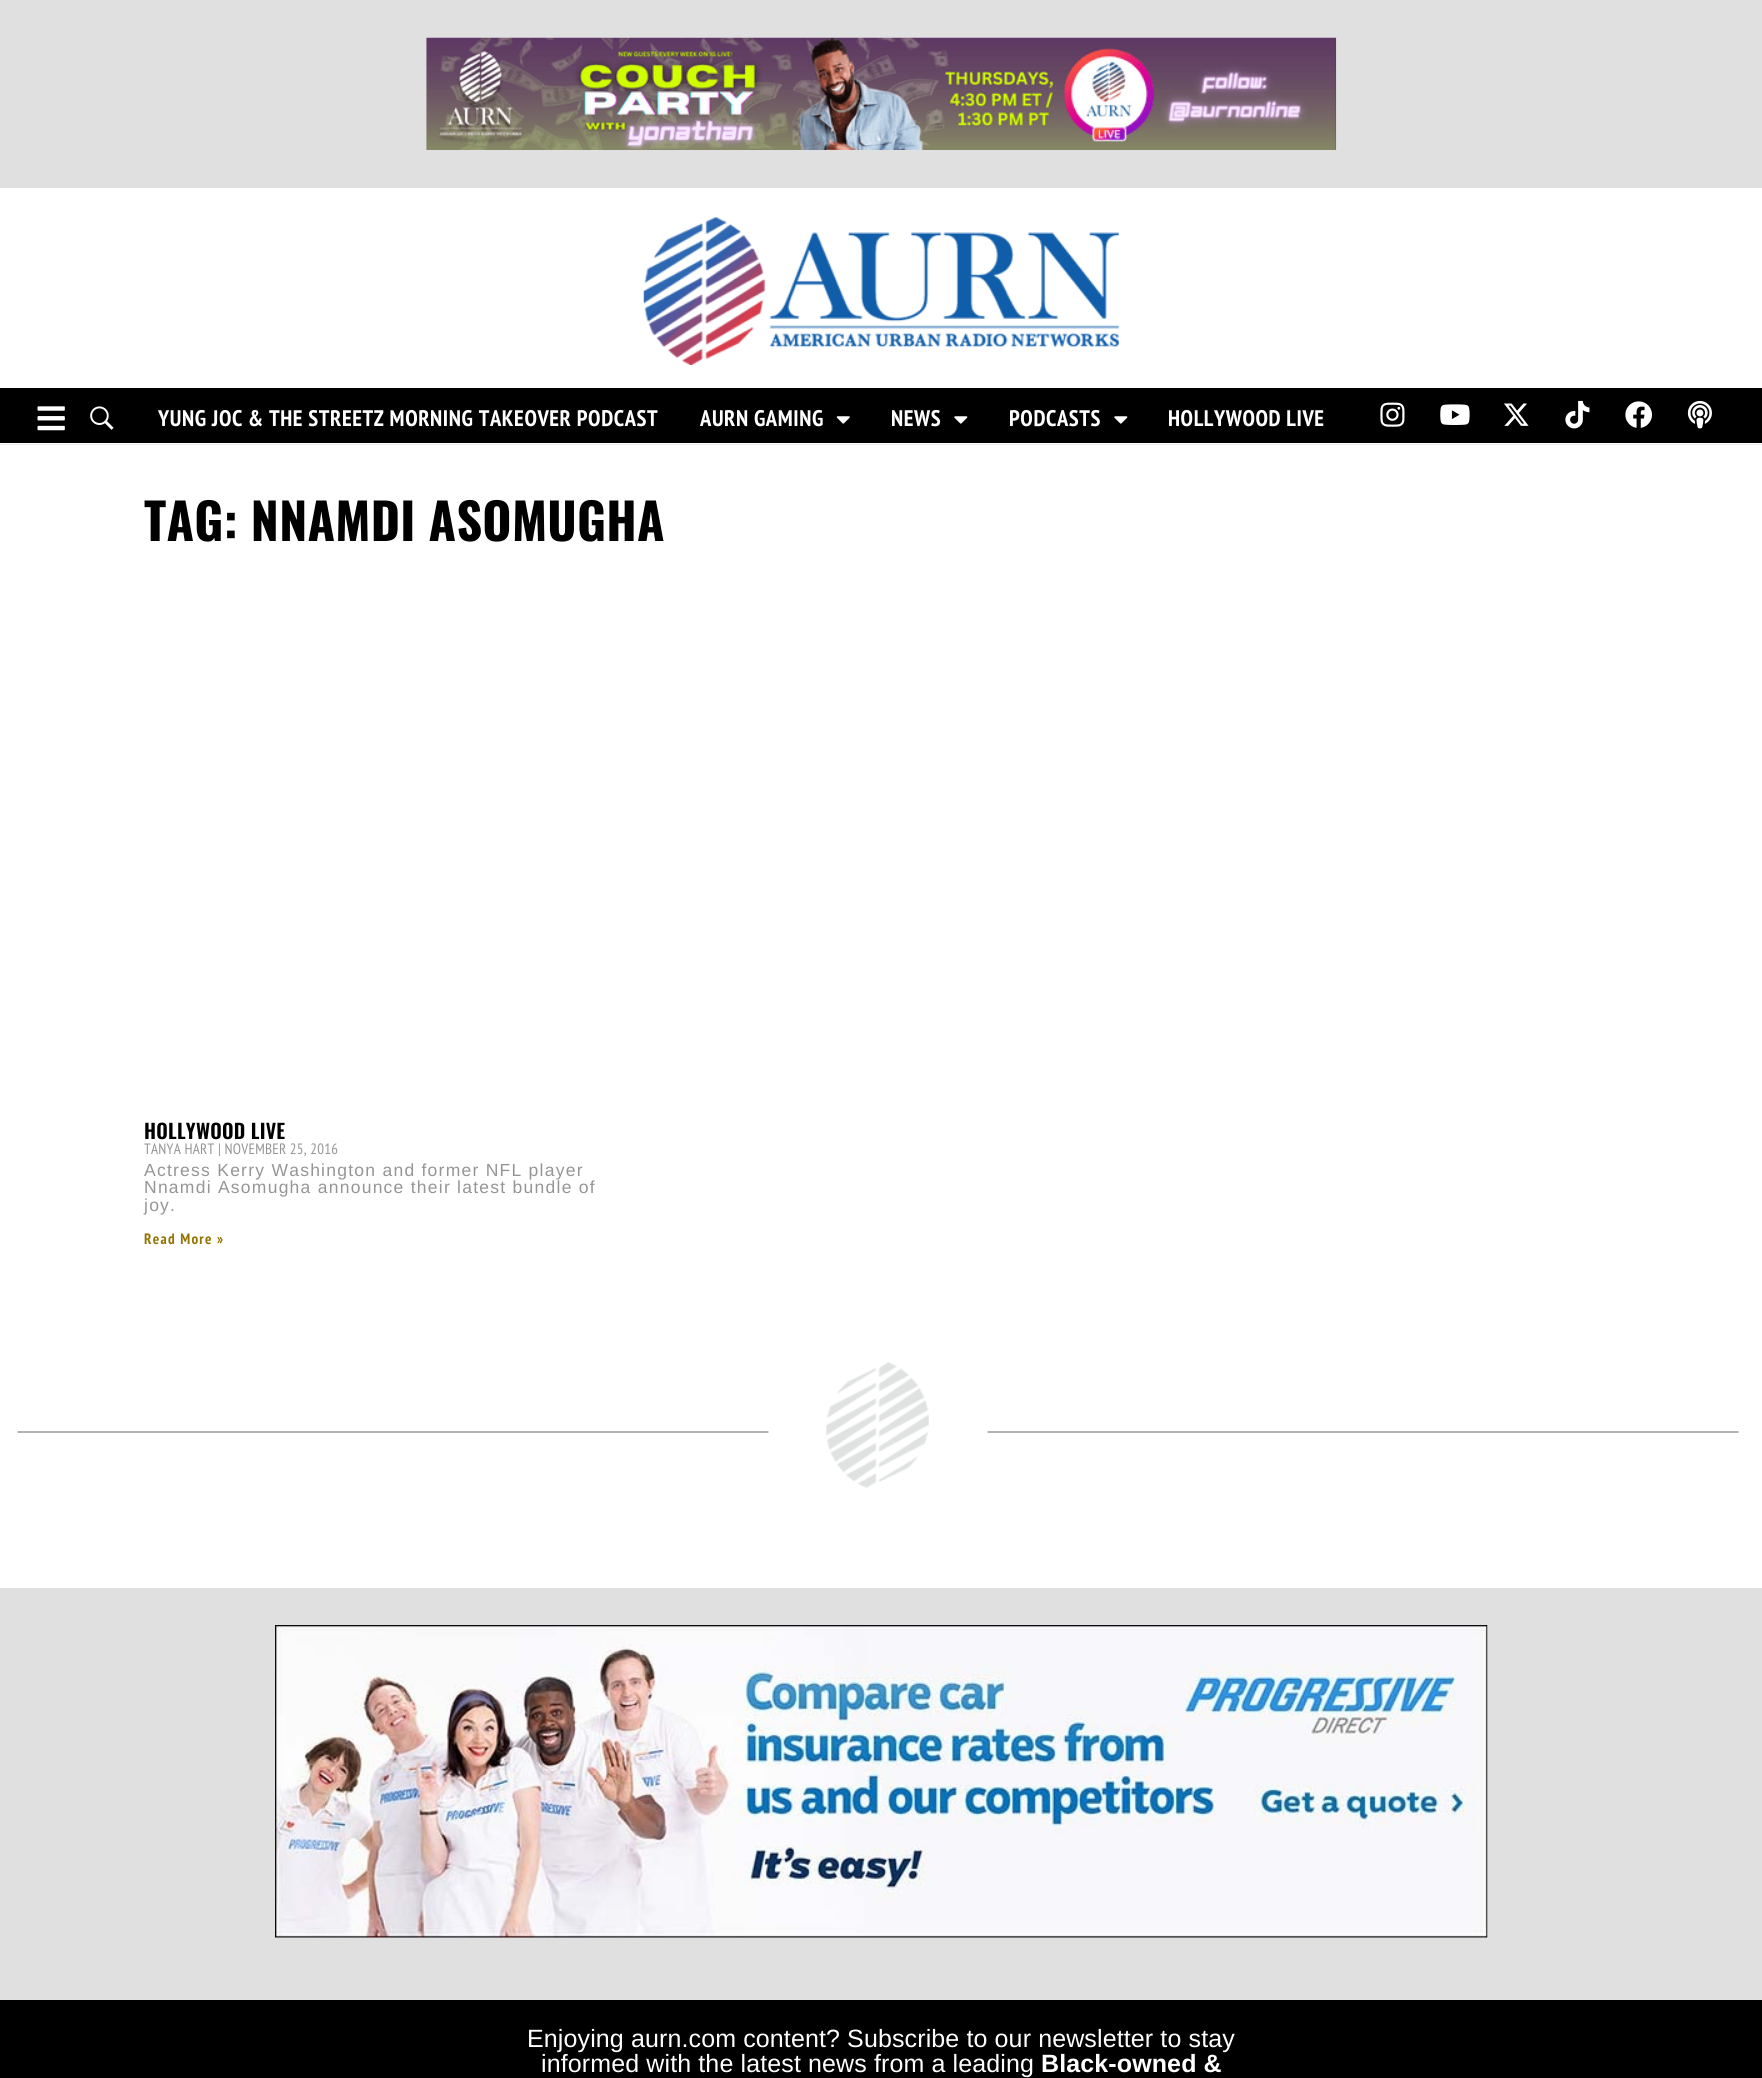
import math
import cairo

surface = cairo.ImageSurface(cairo.FORMAT_RGB24, 1762, 2078)
c = cairo.Context(surface)
options = cairo.FontOptions()
options.set_hint_metrics(cairo.HINT_METRICS_OFF)
options.set_hint_style(cairo.HINT_STYLE_NONE)
c.set_font_options(options)
c.set_miter_limit(4)
def C(code):
 c.set_source_rgb(*(v / 255 for v in bytes.fromhex(code[-6:])))
def F(family, size, italic, bold):
 c.select_font_face(family, cairo.FONT_SLANT_ITALIC if italic else cairo.FONT_SLANT_NORMAL, cairo.FONT_WEIGHT_BOLD if bold else cairo.FONT_WEIGHT_NORMAL)
 c.set_font_size(size)
def L(x, y, s, letter, word):
 c.move_to(x, y)
 for ch in s:
  c.show_text(ch)
  c.rel_move_to(letter + word * (ch == ' '), 0)
def R(x, y, w, h):
 c.rectangle(x, y, w, h)
 c.fill()
def I(path, x, y, w, h):
 c.save()
 c.set_source_surface(cairo.ImageSurface.create_from_png(path), x, y)
 c.rectangle(x, y, w, h)
 c.fill()
 c.restore()
C('ffffff')
c.paint()
C('e0e0e0')
R(0,0,1762,188)
I('1.png',426,37,911,113)
I('2.png',643,217,476,148)
C('000000')
R(0,388,1762,55)
I('3.png',37,406,28,25)
I('4.png',90,406,24,24)
F('PT Sans Narrow',22.5,0,1)
C('ffffff')
L(158,426,'YUNG JOC & THE STREETZ MORNING TAKEOVER PODCAST',.6,0)
L(700,426,'AURN GAMING',.6,0)
I('5.png',836,416,14,8)
L(891,426,'NEWS',.6,0)
I('6.png',954,416,14,8)
L(1009,426,'PODCASTS',.6,0)
I('6.png',1114,416,14,8)
L(1168,426,'HOLLYWOOD LIVE',.6,0)
I('7.png',1380,402,25,25)
I('8.png',1440,404,30,21)
I('9.png',1504,403,25,23)
I('10.png',1565,400,25,29)
I('11.png',1625,401,27,27)
I('12.png',1687,400,25,29)
C('eaeaea')
R(0,444,1762,1)
F('Oswald',50,0,1)
C('000000')
L(144,541,'TAG: NNAMDI ASOMUGHA',.25,0)
F('Oswald SemiBold',20,0,0)
L(144,1139,'HOLLYWOOD LIVE',.25,0)
F('PT Sans Narrow',15,0,0)
C('959596')
L(144,1154,'TANYA HART | NOVEMBER 25, 2016',.25,0)
F('Liberation Sans',17.5,0,0)
L(144,1176,'Actress Kerry Washington and former NFL player',1.25,0)
L(144,1193,'Nnamdi Asomugha announce their latest bundle of',1.25,0)
L(144,1211,'joy.',1.25,0)
F('PT Sans Narrow',15,0,1)
C('947401')
L(144,1244,'Read More »',1.25,0)
c.new_path()
c.move_to(18,1432)
c.line_to(768,1432)
C('798184')
c.set_line_width(1.2)
c.set_line_cap(cairo.LINE_CAP_ROUND)
c.stroke()
I('13.png',826,1362,103,126)
c.new_path()
c.move_to(988,1432)
c.line_to(1738,1432)
c.stroke()
C('e0e0e0')
R(0,1588,1762,412)
I('14.png',275,1625,1213,313)
C('000000')
R(0,2000,1762,78)
F('Liberation Sans',25,0,0)
C('ffffff')
L(527,2047,'Enjoying aurn.com content? Subscribe to our newsletter to stay',.12,0)
L(541,2072,'informed with the latest news from a leading',.12,0)
F('Liberation Sans',25,0,1)
L(1041,2072,'Black-owned &',.12,0)
surface.write_to_png('o.png')
